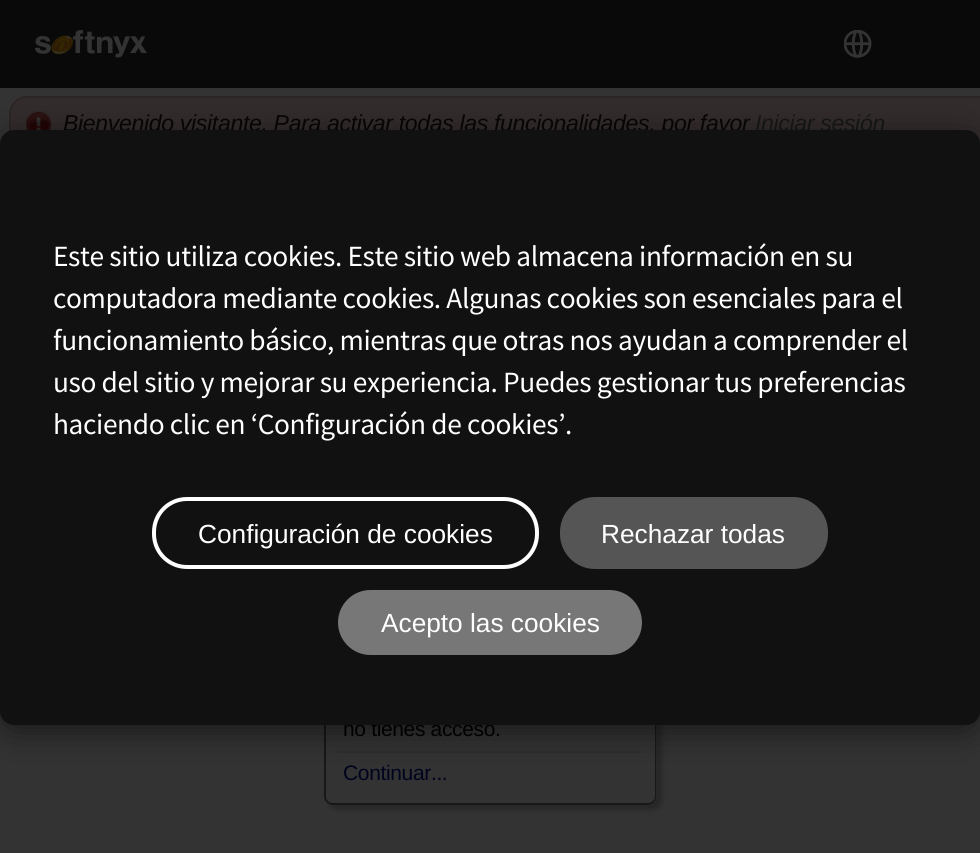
import math
import cairo

surface = cairo.ImageSurface(cairo.FORMAT_RGB24, 980, 853)
c = cairo.Context(surface)
options = cairo.FontOptions()
options.set_hint_metrics(cairo.HINT_METRICS_OFF)
options.set_hint_style(cairo.HINT_STYLE_NONE)
c.set_font_options(options)
c.set_miter_limit(4)
def C(code):
 c.set_source_rgb(*(v / 255 for v in bytes.fromhex(code[-6:])))
def F(family, size, italic, bold):
 c.select_font_face(family, cairo.FONT_SLANT_ITALIC if italic else cairo.FONT_SLANT_NORMAL, cairo.FONT_WEIGHT_BOLD if bold else cairo.FONT_WEIGHT_NORMAL)
 c.set_font_size(size)
def T(x, y, s):
 c.move_to(x, y)
 c.show_text(s)
def L(x, y, s, letter, word):
 c.move_to(x, y)
 for ch in s:
  c.show_text(ch)
  c.rel_move_to(letter + word * (ch == ' '), 0)
def R(x, y, w, h):
 c.rectangle(x, y, w, h)
 c.fill()
def Q(x, y, w, h, r):
 c.new_sub_path()
 for i, (u, v) in enumerate([(x + w - r, y + h - r), (x + r, y + h - r), (x + r, y + r), (x + w - r, y + r)]):
  c.arc(u, v, r, i * math.pi / 2, (i + 1) * math.pi / 2)
 c.close_path()
def S(x, y, w, h, r, blur, alpha):
 c.push_group_with_content(cairo.CONTENT_ALPHA)
 c.set_operator(cairo.OPERATOR_SOURCE)
 for i in range(15, -16, -2):
  e = blur * i / 6
  if min(w, h) + 2 * e > 0:
   c.set_source_rgba(0, 0, 0, alpha * math.erfc((i - 1) / 8.5) / 2)
   Q(x - e, y - e, w + 2 * e, h + 2 * e, max(0, min(r + e + blur * .6, min(w, h) / 2 + e)))
   c.fill()
 c.mask(c.pop_group())
def I(path, x, y, w, h):
 c.save()
 c.set_source_surface(cairo.ImageSurface.create_from_png(path), x, y)
 c.rectangle(x, y, w, h)
 c.fill()
 c.restore()
C('333333')
c.paint()
C('332c2c')
Q(9,96,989,56,18)
c.fill()
I('1.png',25,111,27,19)
Q(10,97,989,54,17)
C('2c2525')
c.stroke()
F('Liberation Sans',23.1,1,0)
C('080505')
L(63,131,'Bienvenido visitante. Para activar todas las funcionalidades, por favor',-.35,0)
C('171717')
L(755,131,'Iniciar sesión',-.35,0)
C('272727')
S(329,613,333,197,9,2.5,1)
Q(325,608,330,196,8)
C('181818')
c.stroke()
C('333333')
Q(326,609,329,194,7)
c.fill()
F('Liberation Sans',21,0,0)
C('000000')
L(343,736,'no tienes acceso.',-.35,0)
C('2f2f2f')
R(338,751,304,2)
C('00031d')
L(343,780,'Continuar...',-.35,0)
C('090909')
R(0,0,980,88)
I('2.png',35,30,112,28)
I('3.png',844,30,28,28)
C('000000')
S(0,137,980,595,14,17.5,.5)
C('111111')
Q(0,130,980,595,14)
c.fill()
F('Noto Sans KR',26.25,0,0)
C('ffffff')
L(53,266,'Este sitio utiliza cookies. Este sitio web almacena información en su',-.35,0)
L(53,308,'computadora mediante cookies. Algunas cookies son esenciales para el',-.35,0)
L(53,350,'funcionamiento básico, mientras que otras nos ayudan a comprender el',-.35,0)
L(53,392,'uso del sitio y mejorar su experiencia. Puedes gestionar tus preferencias',-.35,0)
L(53,434,'haciendo clic en ‘Configuración de cookies’.',-.35,0)
Q(154,499,383,68,33)
c.set_line_width(4)
c.stroke()
F('Liberation Sans',26.25,0,0)
T(198,543,'Configuración de cookies')
C('555555')
Q(560,497,268,72,35)
c.fill()
C('ffffff')
T(601,543,'Rechazar todas')
C('777777')
Q(338,590,304,65,32.5)
c.fill()
C('ffffff')
T(381,632,'Acepto las cookies')
surface.write_to_png('o.png')
